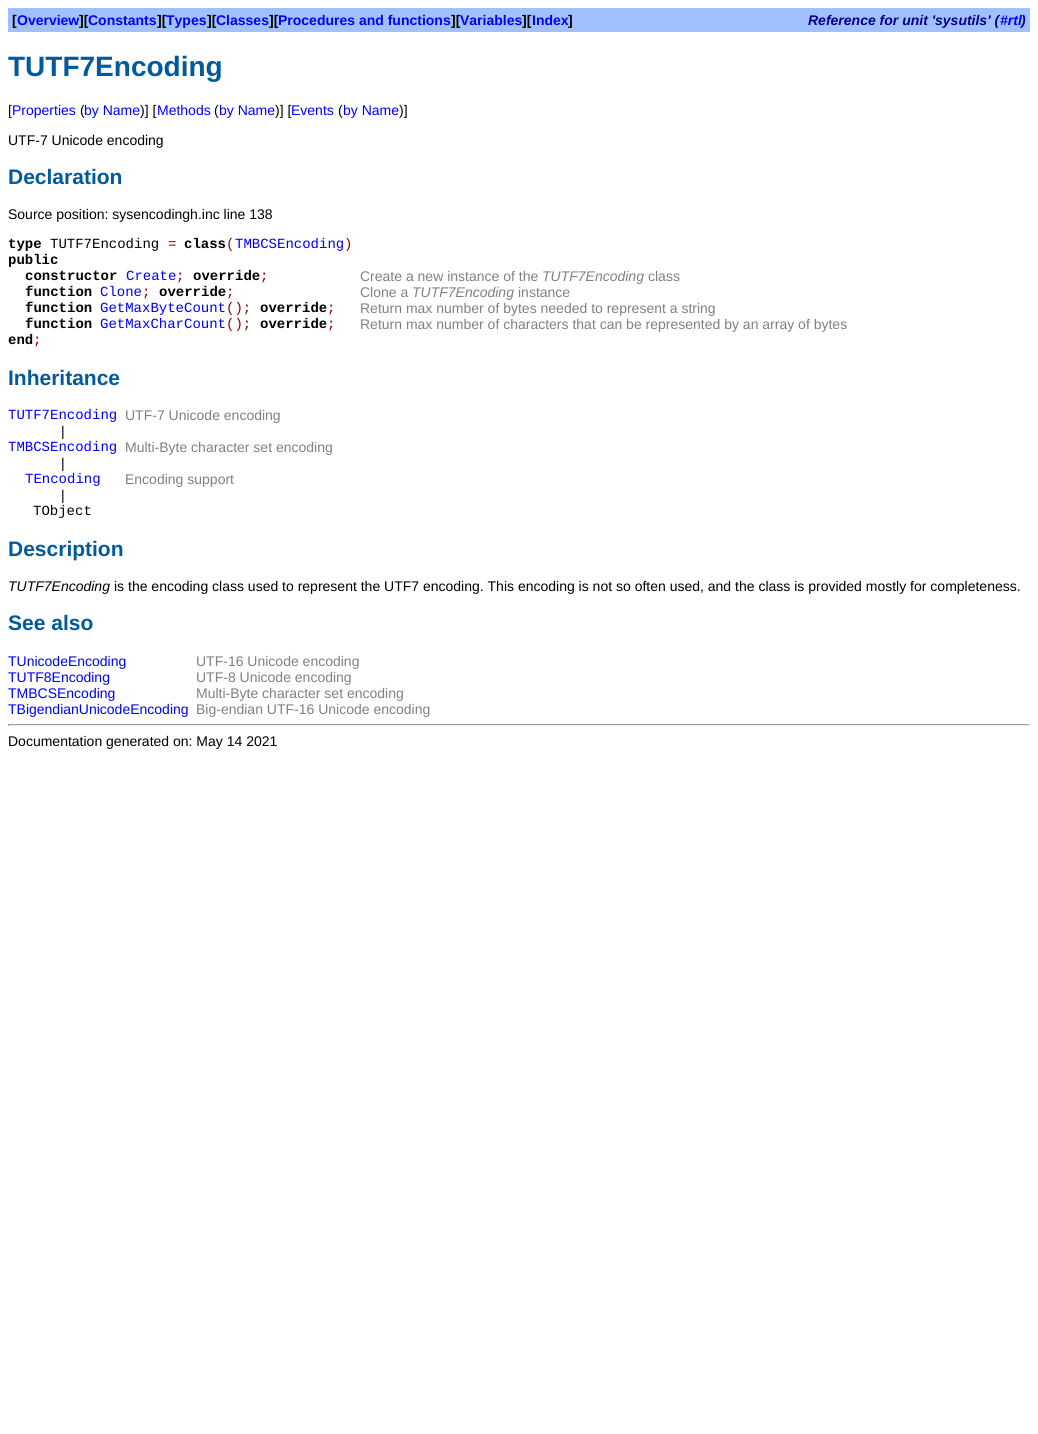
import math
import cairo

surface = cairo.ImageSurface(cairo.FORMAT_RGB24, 1038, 1434)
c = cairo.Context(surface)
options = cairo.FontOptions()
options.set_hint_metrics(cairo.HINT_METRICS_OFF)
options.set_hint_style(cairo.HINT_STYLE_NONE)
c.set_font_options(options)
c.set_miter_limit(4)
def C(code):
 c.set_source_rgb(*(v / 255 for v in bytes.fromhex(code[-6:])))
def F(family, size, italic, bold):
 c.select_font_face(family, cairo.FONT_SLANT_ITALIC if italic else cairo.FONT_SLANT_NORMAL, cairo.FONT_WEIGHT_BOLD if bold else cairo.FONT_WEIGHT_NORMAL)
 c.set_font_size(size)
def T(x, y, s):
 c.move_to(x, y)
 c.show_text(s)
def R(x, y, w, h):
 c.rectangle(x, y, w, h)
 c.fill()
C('ffffff')
c.paint()
C('a0c0ff')
R(8,8,1022,24)
F('Liberation Sans',14,0,1)
C('000000')
T(12,25,'[')
C('0000ff')
T(17,25,'Overview')
C('000000')
T(79,25,'][')
C('0000ff')
T(88,25,'Constants')
C('000000')
T(157,25,'][')
C('0000ff')
T(166,25,'Types')
C('000000')
T(207,25,'][')
C('0000ff')
T(216,25,'Classes')
C('000000')
T(269,25,'][')
C('0000ff')
T(278,25,'Procedures and functions')
C('000000')
T(451,25,'][')
C('0000ff')
T(460,25,'Variables')
C('000000')
T(522,25,'][')
C('0000ff')
T(532,25,'Index')
C('000000')
T(568,25,']')
F('Liberation Sans',14,1,1)
C('00008b')
T(808,25,'Reference for unit \'sysutils\' (')
C('0000ff')
T(1000,25,'#rtl')
C('00008b')
T(1021,25,')')
F('Liberation Sans',28,0,1)
C('005a9c')
T(8,76,'TUTF7Encoding')
F('Liberation Sans',14,0,0)
C('000000')
T(8,115,'[')
C('0000ff')
T(12,115,'Properties')
C('000000')
T(80,115,'(')
C('0000ff')
T(84,115,'by Name')
C('000000')
T(140,115,')] [')
C('0000ff')
T(157,115,'Methods')
C('000000')
T(214,115,'(')
C('0000ff')
T(219,115,'by Name')
C('000000')
T(275,115,')] [')
C('0000ff')
T(291,115,'Events')
C('000000')
T(338,115,'(')
C('0000ff')
T(343,115,'by Name')
C('000000')
T(399,115,')]')
T(8,145,'UTF-7 Unicode encoding')
F('Liberation Sans',21,0,1)
C('005a9c')
T(8,184,'Declaration')
F('Liberation Sans',14,0,0)
C('000000')
T(8,219,'Source position: sysencodingh.inc line 138')
F('Liberation Mono',14,0,1)
T(8,248,'type')
F('Liberation Mono',14,0,0)
T(50,248,'TUTF7Encoding')
C('8b0000')
T(168,248,'=')
F('Liberation Mono',14,0,1)
C('000000')
T(184,248,'class')
F('Liberation Mono',14,0,0)
C('8b0000')
T(226,248,'(')
C('0000ff')
T(235,248,'TMBCSEncoding')
C('8b0000')
T(344,248,')')
F('Liberation Mono',14,0,1)
C('000000')
T(8,264,'public')
T(25,280,'constructor')
F('Liberation Mono',14,0,0)
C('0000ff')
T(126,280,'Create')
C('8b0000')
T(176,280,';')
F('Liberation Mono',14,0,1)
C('000000')
T(193,280,'override')
F('Liberation Mono',14,0,0)
C('8b0000')
T(260,280,';')
F('Liberation Sans',14,0,0)
C('808080')
T(360,281,'Create a new instance of the')
F('Liberation Sans',14,1,0)
T(542,281,'TUTF7Encoding')
F('Liberation Sans',14,0,0)
T(648,281,'class')
F('Liberation Mono',14,0,1)
C('000000')
T(25,296,'function')
F('Liberation Mono',14,0,0)
C('0000ff')
T(100,296,'Clone')
C('8b0000')
T(142,296,';')
F('Liberation Mono',14,0,1)
C('000000')
T(159,296,'override')
F('Liberation Mono',14,0,0)
C('8b0000')
T(226,296,';')
F('Liberation Sans',14,0,0)
C('808080')
T(360,297,'Clone a')
F('Liberation Sans',14,1,0)
T(412,297,'TUTF7Encoding')
F('Liberation Sans',14,0,0)
T(518,297,'instance')
F('Liberation Mono',14,0,1)
C('000000')
T(25,312,'function')
F('Liberation Mono',14,0,0)
C('0000ff')
T(100,312,'GetMaxByteCount')
C('8b0000')
T(226,312,'();')
F('Liberation Mono',14,0,1)
C('000000')
T(260,312,'override')
F('Liberation Mono',14,0,0)
C('8b0000')
T(327,312,';')
F('Liberation Sans',14,0,0)
C('808080')
T(360,313,'Return max number of bytes needed to represent a string')
F('Liberation Mono',14,0,1)
C('000000')
T(25,328,'function')
F('Liberation Mono',14,0,0)
C('0000ff')
T(100,328,'GetMaxCharCount')
C('8b0000')
T(226,328,'();')
F('Liberation Mono',14,0,1)
C('000000')
T(260,328,'override')
F('Liberation Mono',14,0,0)
C('8b0000')
T(327,328,';')
F('Liberation Sans',14,0,0)
C('808080')
T(360,329,'Return max number of characters that can be represented by an array of bytes')
F('Liberation Mono',14,0,1)
C('000000')
T(8,344,'end')
F('Liberation Mono',14,0,0)
C('8b0000')
T(33,344,';')
F('Liberation Sans',21,0,1)
C('005a9c')
T(8,385,'Inheritance')
F('Liberation Mono',14,0,0)
C('0000ff')
T(8,419,'TUTF7Encoding')
F('Liberation Sans',14,0,0)
C('808080')
T(125,420,'UTF-7 Unicode encoding')
C('000000')
T(61,436,'|')
F('Liberation Mono',14,0,0)
C('0000ff')
T(8,451,'TMBCSEncoding')
F('Liberation Sans',14,0,0)
C('808080')
T(125,452,'Multi-Byte character set encoding')
C('000000')
T(61,468,'|')
F('Liberation Mono',14,0,0)
C('0000ff')
T(25,483,'TEncoding')
F('Liberation Sans',14,0,0)
C('808080')
T(125,484,'Encoding support')
C('000000')
T(61,500,'|')
F('Liberation Mono',14,0,0)
T(33,515,'TObject')
F('Liberation Sans',21,0,1)
C('005a9c')
T(8,556,'Description')
F('Liberation Sans',14,1,0)
C('000000')
T(8,591,'TUTF7Encoding')
F('Liberation Sans',14,0,0)
T(114,591,'is the encoding class used to represent the UTF7 encoding. This encoding is not so often used, and the class is provided mostly for completeness.')
F('Liberation Sans',21,0,1)
C('005a9c')
T(8,630,'See also')
F('Liberation Sans',14,0,0)
C('0000ff')
T(8,666,'TUnicodeEncoding')
C('808080')
T(196,666,'UTF-16 Unicode encoding')
C('0000ff')
T(8,682,'TUTF8Encoding')
C('808080')
T(196,682,'UTF-8 Unicode encoding')
C('0000ff')
T(8,698,'TMBCSEncoding')
C('808080')
T(196,698,'Multi-Byte character set encoding')
C('0000ff')
T(8,714,'TBigendianUnicodeEncoding')
C('808080')
T(196,714,'Big-endian UTF-16 Unicode encoding')
C('9f9f9f')
R(8,724,1022,1)
C('eeeeee')
R(1029,724,1,2)
R(8,725,1022,1)
C('9f9f9f')
R(8,724,1,2)
C('000000')
T(8,746,'Documentation generated on: May 14 2021')
surface.write_to_png('o.png')
